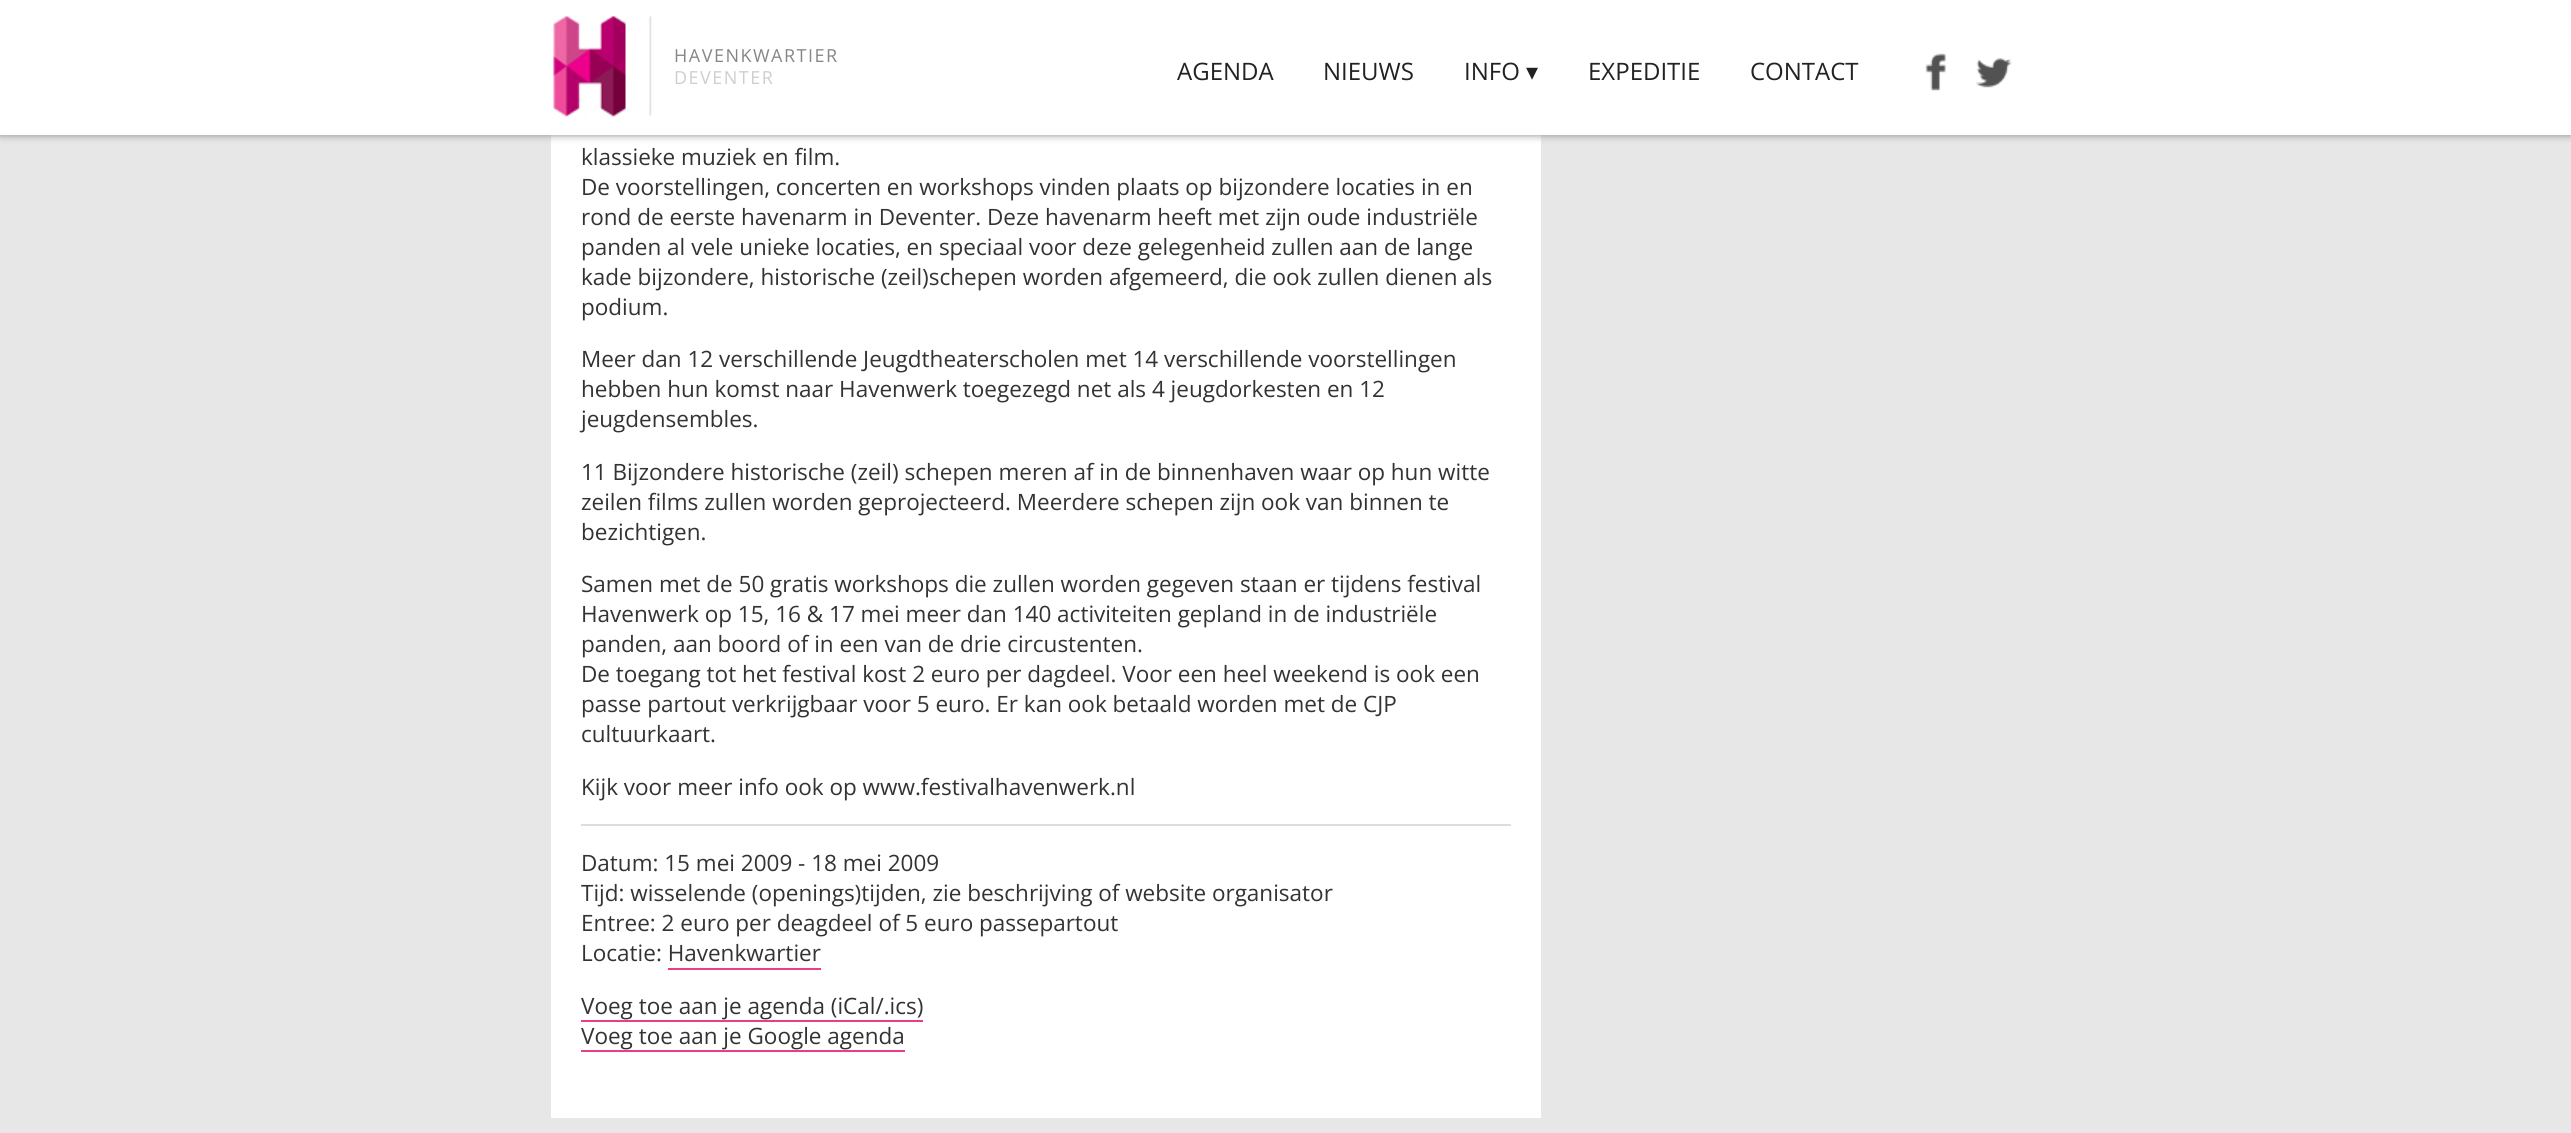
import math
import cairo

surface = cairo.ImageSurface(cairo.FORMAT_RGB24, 2571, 1133)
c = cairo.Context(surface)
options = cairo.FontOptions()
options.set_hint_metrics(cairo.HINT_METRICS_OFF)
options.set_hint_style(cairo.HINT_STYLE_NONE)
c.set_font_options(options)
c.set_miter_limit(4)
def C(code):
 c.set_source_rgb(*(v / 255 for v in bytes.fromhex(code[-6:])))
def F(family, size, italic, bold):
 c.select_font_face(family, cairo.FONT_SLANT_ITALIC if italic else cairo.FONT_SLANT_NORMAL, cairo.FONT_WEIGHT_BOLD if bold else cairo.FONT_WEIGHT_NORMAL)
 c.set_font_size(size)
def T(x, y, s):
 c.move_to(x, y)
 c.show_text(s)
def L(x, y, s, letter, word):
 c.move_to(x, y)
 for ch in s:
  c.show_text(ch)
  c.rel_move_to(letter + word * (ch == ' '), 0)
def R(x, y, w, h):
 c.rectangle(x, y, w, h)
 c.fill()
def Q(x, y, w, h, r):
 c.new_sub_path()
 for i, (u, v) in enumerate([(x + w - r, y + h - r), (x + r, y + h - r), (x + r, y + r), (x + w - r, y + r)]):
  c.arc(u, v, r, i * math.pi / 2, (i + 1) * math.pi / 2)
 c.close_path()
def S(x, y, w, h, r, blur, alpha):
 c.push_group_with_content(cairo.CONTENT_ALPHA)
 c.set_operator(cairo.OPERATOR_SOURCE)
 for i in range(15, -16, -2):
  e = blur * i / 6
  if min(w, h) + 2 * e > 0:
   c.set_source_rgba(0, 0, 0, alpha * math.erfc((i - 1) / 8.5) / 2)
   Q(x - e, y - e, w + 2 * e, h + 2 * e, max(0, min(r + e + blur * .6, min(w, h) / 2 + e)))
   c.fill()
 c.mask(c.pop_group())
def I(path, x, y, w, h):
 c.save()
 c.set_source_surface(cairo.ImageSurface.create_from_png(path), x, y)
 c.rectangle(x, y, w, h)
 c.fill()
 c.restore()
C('e7e7e7')
c.paint()
C('ffffff')
R(551,135,990,983)
C('888888')
S(0,0,2571,135,0,4,1)
C('ffffff')
R(0,0,2571,135)
I('1.png',553,16,99,102)
F('Open Sans',18,0,0)
C('868686')
L(674,62,'HAVENKWARTIER',1.5,0)
C('cecece')
L(674,84,'DEVENTER',1.5,0)
F('Open Sans',24,0,0)
C('222222')
T(1177,80,'AGENDA')
T(1323,80,'NIEUWS')
T(1464,80,'INFO')
F('DejaVu Sans',24,0,0)
T(1526,80,'▾')
F('Open Sans',24,0,0)
T(1588,80,'EXPEDITIE')
T(1750,80,'CONTACT')
I('2.png',1925,53,21,38)
I('3.png',1975,58,37,30)
F('Open Sans',22.5,0,0)
C('333333')
T(581,165,'klassieke muziek en film.')
T(581,195,'De voorstellingen, concerten en workshops vinden plaats op bijzondere locaties in en')
T(581,225,'rond de eerste havenarm in Deventer. Deze havenarm heeft met zijn oude industriële')
T(581,255,'panden al vele unieke locaties, en speciaal voor deze gelegenheid zullen aan de lange')
T(581,285,'kade bijzondere, historische (zeil)schepen worden afgemeerd, die ook zullen dienen als')
T(581,315,'podium.')
T(581,367,'Meer dan 12 verschillende Jeugdtheaterscholen met 14 verschillende voorstellingen')
T(581,397,'hebben hun komst naar Havenwerk toegezegd net als 4 jeugdorkesten en 12')
T(581,427,'jeugdensembles.')
T(581,480,'11 Bijzondere historische (zeil) schepen meren af in de binnenhaven waar op hun witte')
T(581,510,'zeilen films zullen worden geprojecteerd. Meerdere schepen zijn ook van binnen te')
T(581,540,'bezichtigen.')
T(581,592,'Samen met de 50 gratis workshops die zullen worden gegeven staan er tijdens festival')
T(581,622,'Havenwerk op 15, 16 & 17 mei meer dan 140 activiteiten gepland in de industriële')
T(581,652,'panden, aan boord of in een van de drie circustenten.')
T(581,682,'De toegang tot het festival kost 2 euro per dagdeel. Voor een heel weekend is ook een')
T(581,712,'passe partout verkrijgbaar voor 5 euro. Er kan ook betaald worden met de CJP')
T(581,742,'cultuurkaart.')
T(581,795,'Kijk voor meer info ook op www.festivalhavenwerk.nl')
C('dddddd')
R(581,824,930,2)
C('333333')
T(581,871,'Datum: 15 mei 2009 - 18 mei 2009')
T(581,901,'Tijd: wisselende (openings)tijden, zie beschrijving of website organisator')
T(581,931,'Entree: 2 euro per deagdeel of 5 euro passepartout')
T(581,961,'Locatie: Havenkwartier')
C('e83d8b')
R(668,968,153,2)
C('333333')
T(581,1014,'Voeg toe aan je agenda (iCal/.ics)')
C('e83d8b')
R(581,1020,342,2)
C('333333')
T(581,1044,'Voeg toe aan je Google agenda')
C('e83d8b')
R(581,1050,324,2)
surface.write_to_png('o.png')
